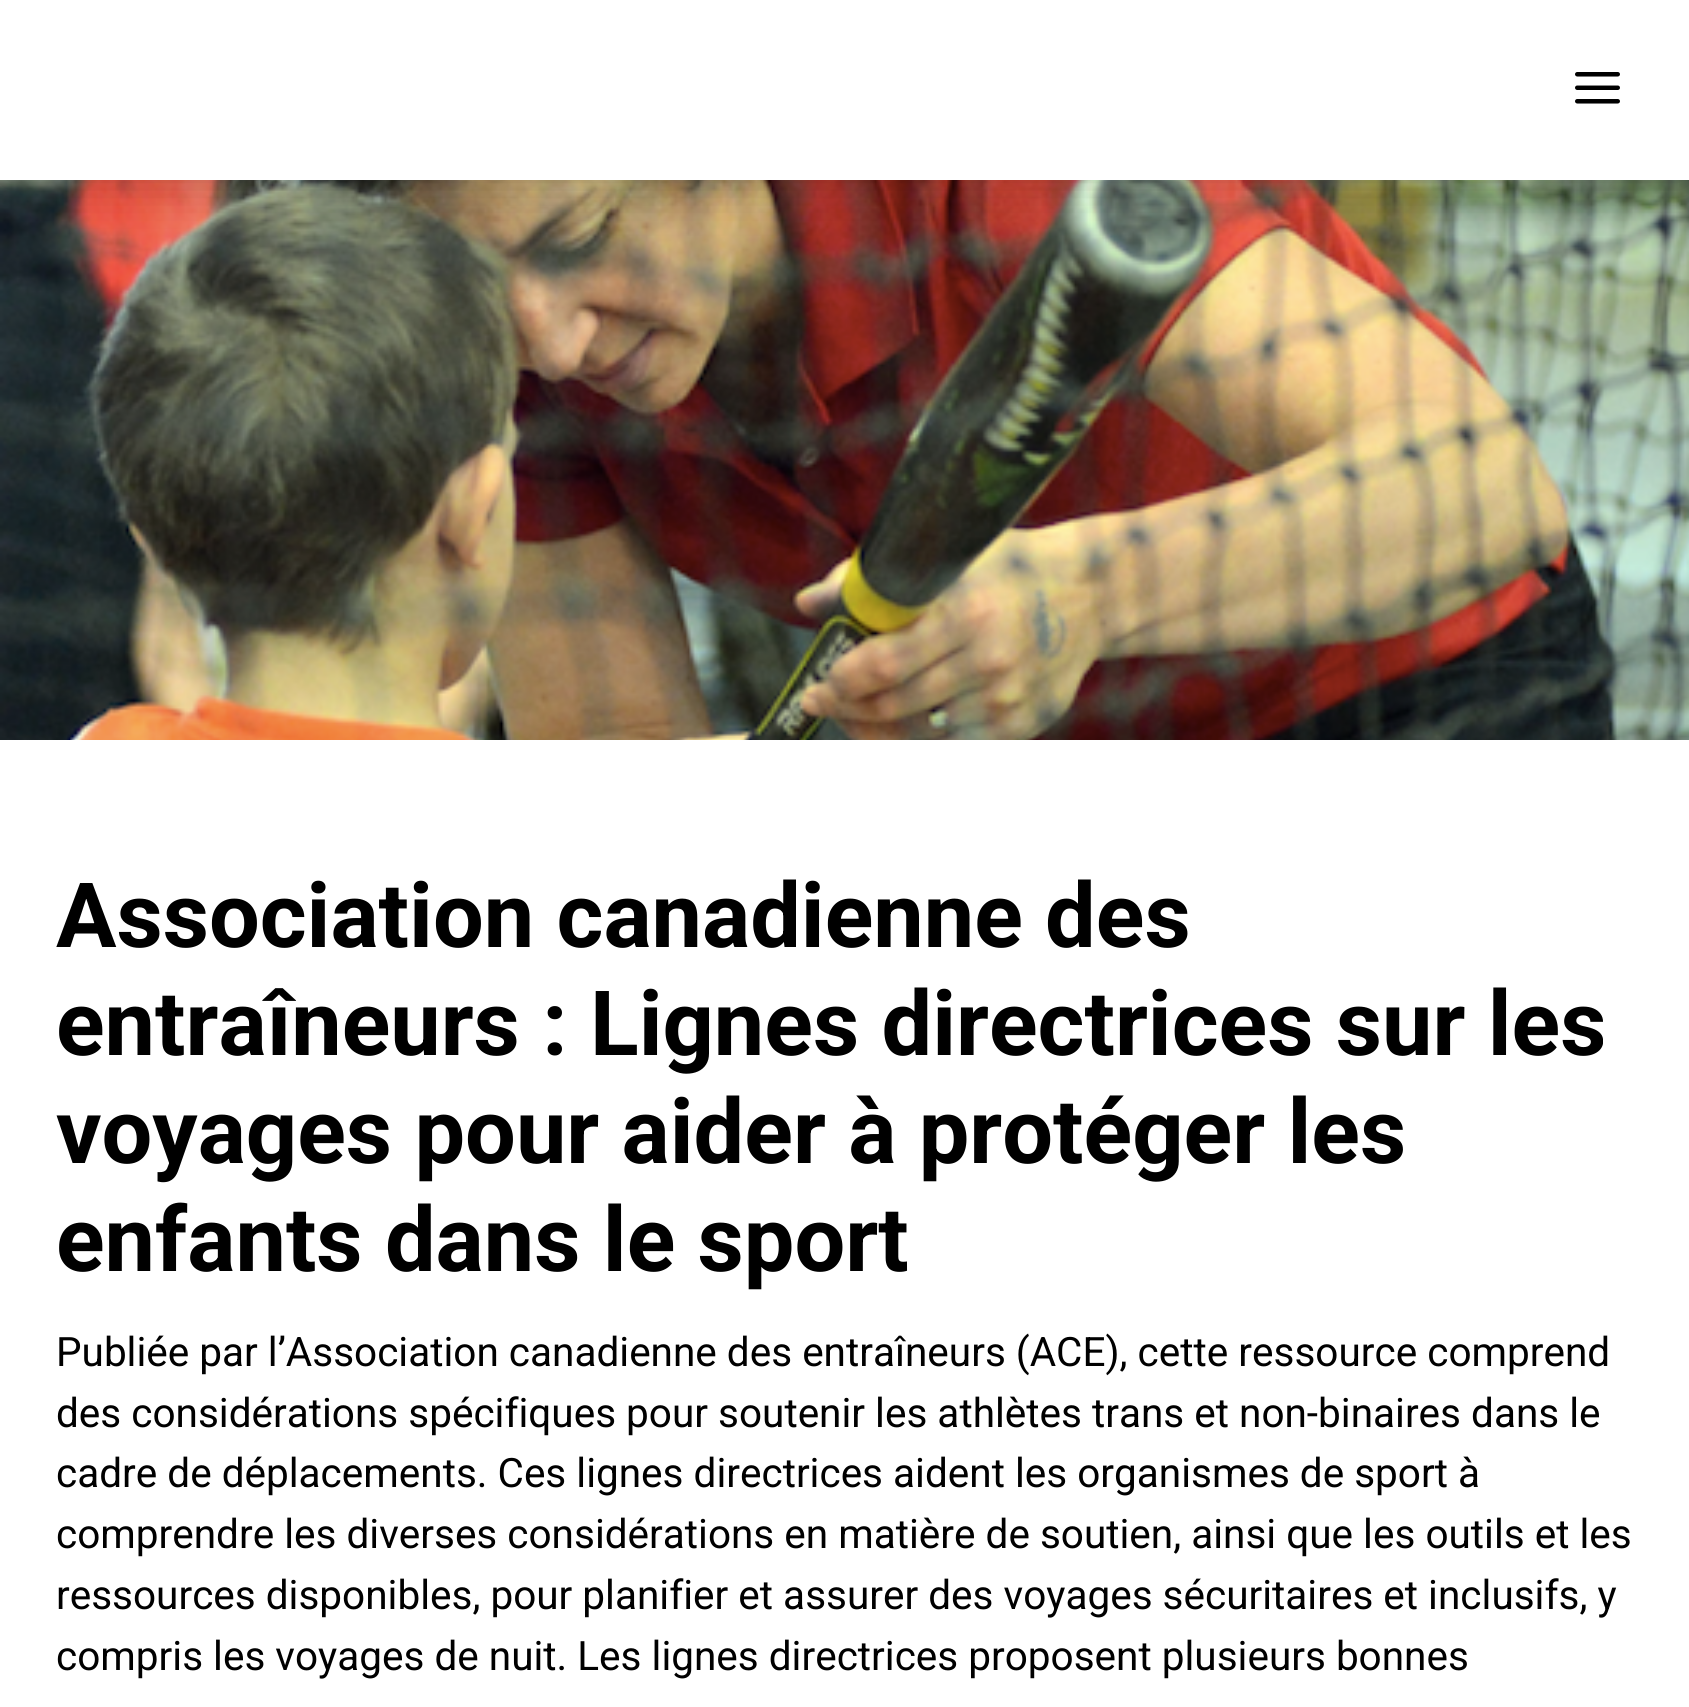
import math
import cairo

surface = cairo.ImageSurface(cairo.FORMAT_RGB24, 1689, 1707)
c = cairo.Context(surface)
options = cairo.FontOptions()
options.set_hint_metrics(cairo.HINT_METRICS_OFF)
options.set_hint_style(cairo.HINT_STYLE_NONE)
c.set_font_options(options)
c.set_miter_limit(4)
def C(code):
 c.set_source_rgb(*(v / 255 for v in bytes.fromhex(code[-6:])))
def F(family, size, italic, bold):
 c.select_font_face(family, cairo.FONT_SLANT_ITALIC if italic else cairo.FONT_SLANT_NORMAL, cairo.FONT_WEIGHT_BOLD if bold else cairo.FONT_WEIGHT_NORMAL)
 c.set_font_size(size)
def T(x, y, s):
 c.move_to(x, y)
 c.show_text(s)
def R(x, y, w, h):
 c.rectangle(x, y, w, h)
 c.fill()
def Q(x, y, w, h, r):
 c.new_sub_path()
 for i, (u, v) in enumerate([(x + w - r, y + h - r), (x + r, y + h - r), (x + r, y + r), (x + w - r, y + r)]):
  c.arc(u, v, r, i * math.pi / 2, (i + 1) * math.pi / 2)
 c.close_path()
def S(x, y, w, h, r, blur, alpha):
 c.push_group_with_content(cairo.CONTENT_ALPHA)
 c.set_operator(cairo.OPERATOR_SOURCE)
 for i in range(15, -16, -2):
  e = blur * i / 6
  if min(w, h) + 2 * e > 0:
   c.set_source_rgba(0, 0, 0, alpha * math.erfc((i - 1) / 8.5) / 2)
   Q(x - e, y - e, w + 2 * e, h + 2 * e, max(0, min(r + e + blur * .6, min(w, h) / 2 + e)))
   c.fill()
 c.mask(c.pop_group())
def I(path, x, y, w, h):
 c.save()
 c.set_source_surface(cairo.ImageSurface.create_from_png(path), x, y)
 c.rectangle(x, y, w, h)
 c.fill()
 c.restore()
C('ffffff')
c.paint()
I('2.png',0,180,1689,560)
C('000000')
S(0,7,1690,180,0,22.5,.2)
C('ffffff')
R(0,0,1689,180)
I('1.png',1575,72,45,32)
F('Roboto',90,0,1)
C('000000')
T(56,947,'Association canadienne des')
T(56,1055,'entraîneurs : Lignes directrices sur les')
T(56,1163,'voyages pour aider à protéger les')
T(56,1271,'enfants dans le sport')
F('Roboto',40.5,0,0)
T(56,1366,'Publiée par l’Association canadienne des entraîneurs (ACE), cette ressource comprend')
T(56,1427,'des considérations spécifiques pour soutenir les athlètes trans et non-binaires dans le')
T(56,1487,'cadre de déplacements. Ces lignes directrices aident les organismes de sport à')
T(56,1548,'comprendre les diverses considérations en matière de soutien, ainsi que les outils et les')
T(56,1609,'ressources disponibles, pour planifier et assurer des voyages sécuritaires et inclusifs, y')
T(56,1670,'compris les voyages de nuit. Les lignes directrices proposent plusieurs bonnes')
surface.write_to_png('o.png')
